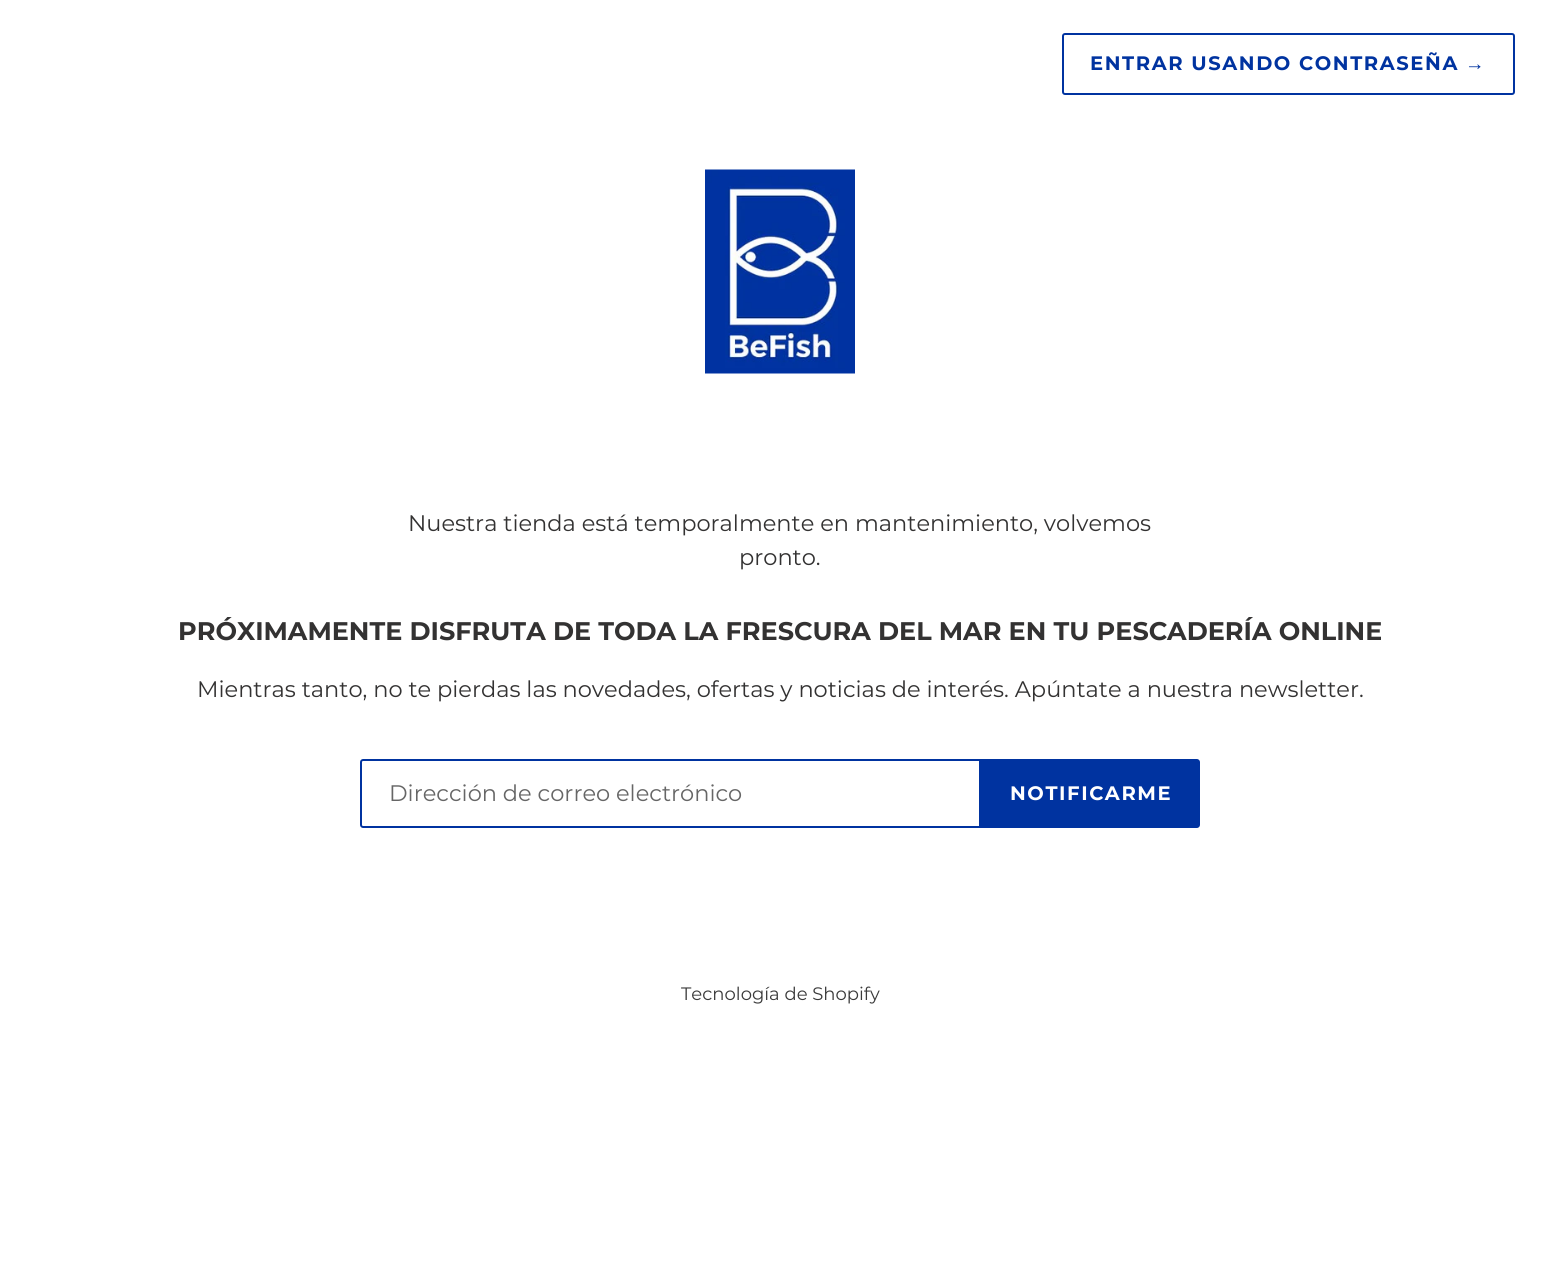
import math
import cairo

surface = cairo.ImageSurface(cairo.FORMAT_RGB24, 1560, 1263)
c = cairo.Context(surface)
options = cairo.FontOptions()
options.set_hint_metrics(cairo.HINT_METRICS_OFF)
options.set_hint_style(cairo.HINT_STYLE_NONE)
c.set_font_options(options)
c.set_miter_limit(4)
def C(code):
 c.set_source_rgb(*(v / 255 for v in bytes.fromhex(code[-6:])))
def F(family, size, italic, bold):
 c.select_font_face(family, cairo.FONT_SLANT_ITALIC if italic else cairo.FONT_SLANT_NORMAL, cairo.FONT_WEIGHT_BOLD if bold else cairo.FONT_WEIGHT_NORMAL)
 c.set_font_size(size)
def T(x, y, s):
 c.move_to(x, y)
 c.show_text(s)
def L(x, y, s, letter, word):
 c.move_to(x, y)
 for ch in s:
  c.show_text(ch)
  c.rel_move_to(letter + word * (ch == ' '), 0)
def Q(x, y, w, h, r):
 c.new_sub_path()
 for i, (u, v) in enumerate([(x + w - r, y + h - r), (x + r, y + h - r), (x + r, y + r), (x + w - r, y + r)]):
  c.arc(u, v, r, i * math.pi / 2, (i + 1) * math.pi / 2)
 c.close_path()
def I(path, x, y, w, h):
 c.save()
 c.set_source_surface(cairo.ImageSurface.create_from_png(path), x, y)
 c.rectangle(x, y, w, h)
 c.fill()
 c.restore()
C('ffffff')
c.paint()
Q(1063,34,451,60,2)
C('0033a0')
c.stroke()
F('Montserrat',19.5,0,1)
L(1090,70,'ENTRAR USANDO CONTRASEÑA',1.6,0)
F('Liberation Sans',19.5,0,1)
L(1465,70,'→',1.6,0)
I('1.png',705,169,150,205)
F('Montserrat',22.5,0,0)
C('333232')
T(408,531,'Nuestra tienda está temporalmente en mantenimiento, volvemos')
T(739,565,'pronto.')
F('Montserrat',25.5,0,1)
T(178,640,'PRÓXIMAMENTE DISFRUTA DE TODA LA FRESCURA DEL MAR EN TU PESCADERÍA ONLINE')
F('Montserrat',22.5,0,0)
T(197,697,'Mientras tanto, no te pierdas las novedades, ofertas y noticias de interés. Apúntate a nuestra newsletter.')
c.new_path()
c.move_to(363,760)
c.line_to(980,760)
c.line_to(980,827)
c.line_to(363,827)
c.curve_to(362,827,361,826,361,825)
c.line_to(361,762)
c.curve_to(361,761,362,760,363,760)
c.close_path()
C('0033a0')
c.stroke()
C('666666')
T(389,801,'Dirección de correo electrónico')
C('0033a0')
c.new_path()
c.move_to(981,759)
c.line_to(1197,759)
c.curve_to(1198.5,759,1200,760.5,1200,762)
c.line_to(1200,825)
c.curve_to(1200,826.5,1198.5,828,1197,828)
c.line_to(981,828)
c.close_path()
c.fill()
F('Montserrat',19.5,0,1)
C('ffffff')
L(1010,800,'NOTIFICARME',1.6,0)
F('Montserrat',18,0,0)
C('3a3a3a')
T(681,1000,'Tecnología de Shopify')
surface.write_to_png('o.png')
